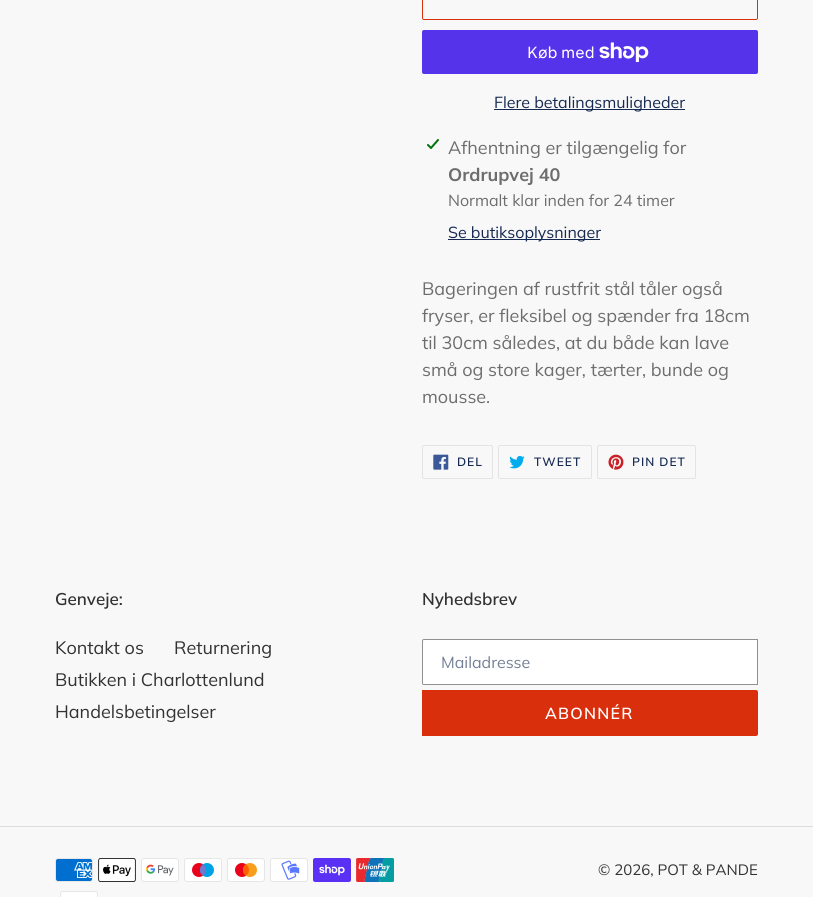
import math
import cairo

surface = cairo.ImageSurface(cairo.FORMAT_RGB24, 813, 897)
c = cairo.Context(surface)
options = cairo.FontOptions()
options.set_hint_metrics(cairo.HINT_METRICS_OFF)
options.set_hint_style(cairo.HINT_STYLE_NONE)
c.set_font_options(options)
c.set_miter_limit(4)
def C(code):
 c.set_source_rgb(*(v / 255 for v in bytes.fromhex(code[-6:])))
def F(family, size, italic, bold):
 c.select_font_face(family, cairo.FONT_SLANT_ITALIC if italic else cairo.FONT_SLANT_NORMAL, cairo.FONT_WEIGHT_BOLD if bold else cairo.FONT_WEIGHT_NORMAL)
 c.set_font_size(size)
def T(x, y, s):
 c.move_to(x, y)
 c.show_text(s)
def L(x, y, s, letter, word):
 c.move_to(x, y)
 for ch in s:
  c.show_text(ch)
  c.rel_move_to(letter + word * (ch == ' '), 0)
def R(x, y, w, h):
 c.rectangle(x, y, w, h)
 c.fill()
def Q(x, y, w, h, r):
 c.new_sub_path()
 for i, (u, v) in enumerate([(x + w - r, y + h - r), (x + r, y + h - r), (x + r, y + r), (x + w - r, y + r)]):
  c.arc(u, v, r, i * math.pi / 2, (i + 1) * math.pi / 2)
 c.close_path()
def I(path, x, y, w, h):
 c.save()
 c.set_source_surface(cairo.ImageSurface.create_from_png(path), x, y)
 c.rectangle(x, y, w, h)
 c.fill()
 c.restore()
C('f8f8f8')
c.paint()
Q(422.5,-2.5,335,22,1.5)
C('da2f0c')
c.set_line_width(1)
c.stroke()
C('5433eb')
Q(422,30,336,44,2)
c.fill()
F('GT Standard',16,0,0)
C('ffffff')
T(527,58,'Køb med')
I('1.png',599,42,50,20)
C('162950')
R(494,109,191,1)
F('Muli',16,0,0)
T(494,108,'Flere betalingsmuligheder')
I('2.png',427,139,12,10)
F('Muli',18,0,0)
C('6d6d6d')
T(448,154,'Afhentning er tilgængelig for')
F('Muli',18,0,1)
T(448,181,'Ordrupvej 40')
F('Muli',16,0,0)
T(448,206,'Normalt klar inden for 24 timer')
C('162950')
R(448,239,152,1)
T(448,238,'Se butiksoplysninger')
F('Muli',18,0,0)
C('6d6d6d')
T(422,295,'Bageringen af rustfrit stål tåler også')
T(422,322,'fryser, er fleksibel og spænder fra 18cm')
T(422,349,'til 30cm således, at du både kan lave')
T(422,376,'små og store kager, tærter, bunde og')
T(422,403,'mousse.')
Q(422.5,445.5,70,33,1.5)
C('e4e4e4')
c.stroke()
I('3.png',433,454,16,16)
F('Muli SemiBold',12,0,0)
C('162950')
L(457,466,'DEL',1,0)
Q(498.5,445.5,93,33,1.5)
C('e4e4e4')
c.stroke()
I('4.png',509,455,16,14)
C('162950')
L(534,466,'TWEET',1,0)
Q(597.5,445.5,98,33,1.5)
C('e4e4e4')
c.stroke()
I('5.png',608,454,16,16)
C('162950')
L(632,466,'PIN DET',1,0)
F('Muli SemiBold',17,0,0)
C('333232')
T(55,605,'Genveje:')
F('Muli',18,0,0)
T(55,654,'Kontakt os')
T(174,654,'Returnering')
T(55,686,'Butikken i Charlottenlund')
T(55,718,'Handelsbetingelser')
F('Muli SemiBold',17,0,0)
T(422,605,'Nyhedsbrev')
C('ffffff')
c.new_path()
c.move_to(424,639.5)
c.line_to(757.5,639.5)
c.line_to(757.5,684.5)
c.line_to(424,684.5)
c.curve_to(423,684.5,422.5,684,422.5,683)
c.line_to(422.5,641)
c.curve_to(422.5,640,423,639.5,424,639.5)
c.close_path()
c.fill_preserve()
C('909090')
c.stroke()
F('Muli',16,0,0)
C('737f96')
T(441,668,'Mailadresse')
C('da2f0c')
c.new_path()
c.move_to(422,690)
c.line_to(756,690)
c.curve_to(757,690,758,691,758,692)
c.line_to(758,734)
c.curve_to(758,735,757,736,756,736)
c.line_to(422,736)
c.close_path()
c.fill()
F('Muli SemiBold',16,0,0)
C('ffffff')
L(545,719,'ABONNÉR',1.25,0)
C('dddddd')
R(0,826,813,1)
I('6.png',55,858,38,24)
I('7.png',98,858,38,24)
I('8.png',141,858,38,24)
I('9.png',184,858,38,24)
I('10.png',227,858,38,24)
I('11.png',270,858,38,24)
I('12.png',313,858,38,24)
I('13.png',356,858,38,24)
I('14.png',60,891,38,6)
F('Muli',15,0,0)
C('333232')
T(598,875,'© 2026, POT & PANDE')
surface.write_to_png('o.png')
